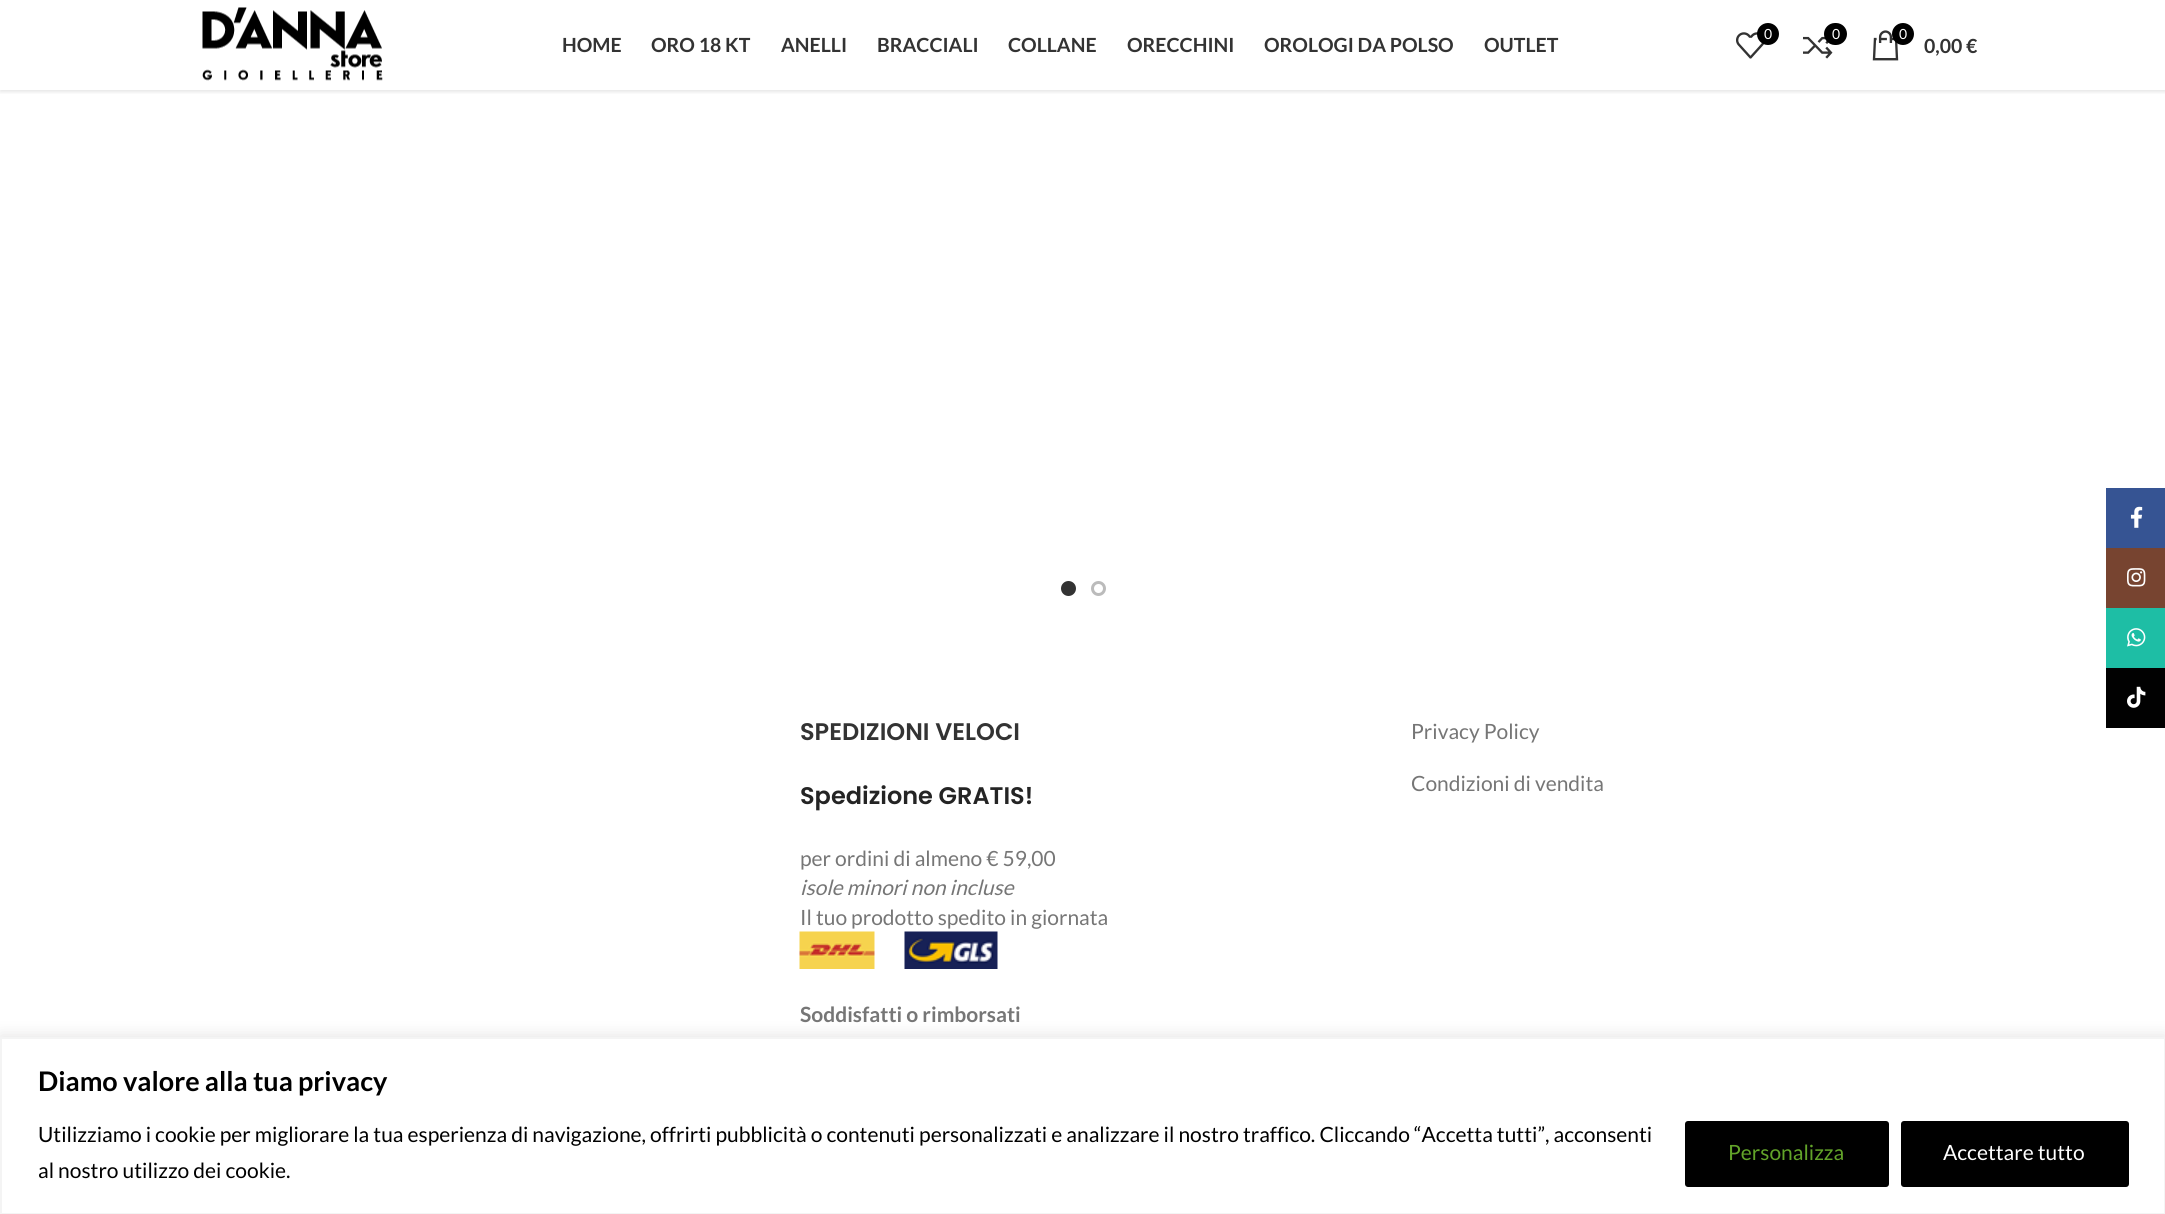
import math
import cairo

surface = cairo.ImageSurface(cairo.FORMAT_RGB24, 2165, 1214)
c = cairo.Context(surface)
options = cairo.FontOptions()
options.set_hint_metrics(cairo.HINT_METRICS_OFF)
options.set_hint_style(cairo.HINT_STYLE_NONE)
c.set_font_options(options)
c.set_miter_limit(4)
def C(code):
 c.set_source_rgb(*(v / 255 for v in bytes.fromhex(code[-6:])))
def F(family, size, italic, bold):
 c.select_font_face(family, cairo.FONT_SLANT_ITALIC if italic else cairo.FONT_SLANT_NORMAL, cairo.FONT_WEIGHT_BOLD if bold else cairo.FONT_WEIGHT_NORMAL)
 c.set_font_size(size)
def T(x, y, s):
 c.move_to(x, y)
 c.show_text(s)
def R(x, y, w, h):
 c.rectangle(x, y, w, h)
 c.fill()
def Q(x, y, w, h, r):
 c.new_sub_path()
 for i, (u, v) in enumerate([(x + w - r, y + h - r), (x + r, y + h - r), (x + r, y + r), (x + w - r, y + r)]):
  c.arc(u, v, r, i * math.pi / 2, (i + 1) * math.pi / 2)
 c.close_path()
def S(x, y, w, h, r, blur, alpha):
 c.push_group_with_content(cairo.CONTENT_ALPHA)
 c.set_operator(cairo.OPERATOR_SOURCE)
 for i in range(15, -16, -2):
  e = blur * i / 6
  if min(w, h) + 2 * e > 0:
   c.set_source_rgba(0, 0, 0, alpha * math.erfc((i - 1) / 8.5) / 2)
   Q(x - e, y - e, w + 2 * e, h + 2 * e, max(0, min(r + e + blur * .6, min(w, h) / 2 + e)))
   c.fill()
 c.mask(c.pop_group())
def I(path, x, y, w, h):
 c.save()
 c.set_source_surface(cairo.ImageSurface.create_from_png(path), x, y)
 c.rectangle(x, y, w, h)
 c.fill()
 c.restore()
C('ffffff')
c.paint()
c.save()
c.rectangle(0,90,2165,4)
c.clip()
C('000000')
S(0,2,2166,90,0,2,.1)
c.restore()
I('1.png',202,7,181,74)
F('Lato',19.5,0,1)
C('333333')
T(562,52,'HOME')
T(651,52,'ORO 18 KT')
T(781,52,'ANELLI')
T(877,52,'BRACCIALI')
T(1008,52,'COLLANE')
T(1127,52,'ORECCHINI')
T(1264,52,'OROLOGI DA POLSO')
T(1484,52,'OUTLET')
I('2.png',1736,32,28,27)
C('000000')
c.arc(1768,34,11,0,2 * math.pi)
c.fill()
F('Lato',14,0,0)
C('ffffff')
T(1764,39,'0')
I('3.png',1803,36,30,23)
C('000000')
Q(1824,23,23,22,11)
c.fill()
C('ffffff')
T(1832,39,'0')
I('4.png',1872,30,27,31)
C('000000')
c.arc(1903,34,11,0,2 * math.pi)
c.fill()
C('ffffff')
T(1899,39,'0')
F('Lato',19.5,0,1)
C('333333')
T(1924,53,'0,00 €')
c.new_path()
c.arc(1068.5,588.5,6,0,2 * math.pi)
c.fill_preserve()
c.set_line_width(3)
c.stroke()
c.arc(1098.5,588.5,6,0,2 * math.pi)
C('bbbbbb')
c.stroke()
F('Poppins SemiBold',24,0,0)
C('333333')
T(800,740,'SPEDIZIONI VELOCI')
C('242424')
T(800,804,'Spedizione GRATIS!')
F('Lato',21,0,0)
C('767676')
T(800,866,'per ordini di almeno € 59,00')
F('Lato',21,1,0)
T(800,895,'isole minori non incluse')
F('Lato',21,0,0)
T(800,925,'Il tuo prodotto spedito in giornata')
I('5.png',799,931,199,38)
F('Lato',21,0,1)
T(800,1022,'Soddisfatti o rimborsati')
F('Lato',21,0,0)
T(1411,739,'Privacy Policy')
T(1411,791,'Condizioni di vendita')
C('365493')
R(2106,488,59,60)
I('6.png',2130,506,13,22)
C('774430')
R(2106,548,59,60)
I('7.png',2127,568,19,19)
C('1ebea5')
R(2106,608,59,60)
I('8.png',2127,628,19,19)
C('010101')
R(2106,668,59,60)
I('9.png',2127,686,19,22)
C('acabab')
S(0,1035,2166,179,0,7.5,.3)
C('ffffff')
c.rectangle(1,1038,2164,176)
c.fill_preserve()
C('f4f4f4')
c.set_line_width(2)
c.stroke()
F('Lato',27,0,1)
C('000000')
T(38,1091,'Diamo valore alla tua privacy')
F('Lato',21,0,0)
T(38,1142,'Utilizziamo i cookie per migliorare la tua esperienza di navigazione, offrirti pubblicità o contenuti personalizzati e analizzare il nostro traffico. Cliccando “Accetta tutti”, acconsenti')
T(38,1178,'al nostro utilizzo dei cookie.')
Q(1686.5,1122.5,201,63,1.5)
c.fill_preserve()
c.set_line_width(3)
c.stroke()
C('62a329')
T(1728,1160,'Personalizza')
C('000000')
Q(1902.5,1122.5,225,63,1.5)
c.fill_preserve()
c.stroke()
C('ffffff')
T(1943,1160,'Accettare tutto')
surface.write_to_png('o.png')
